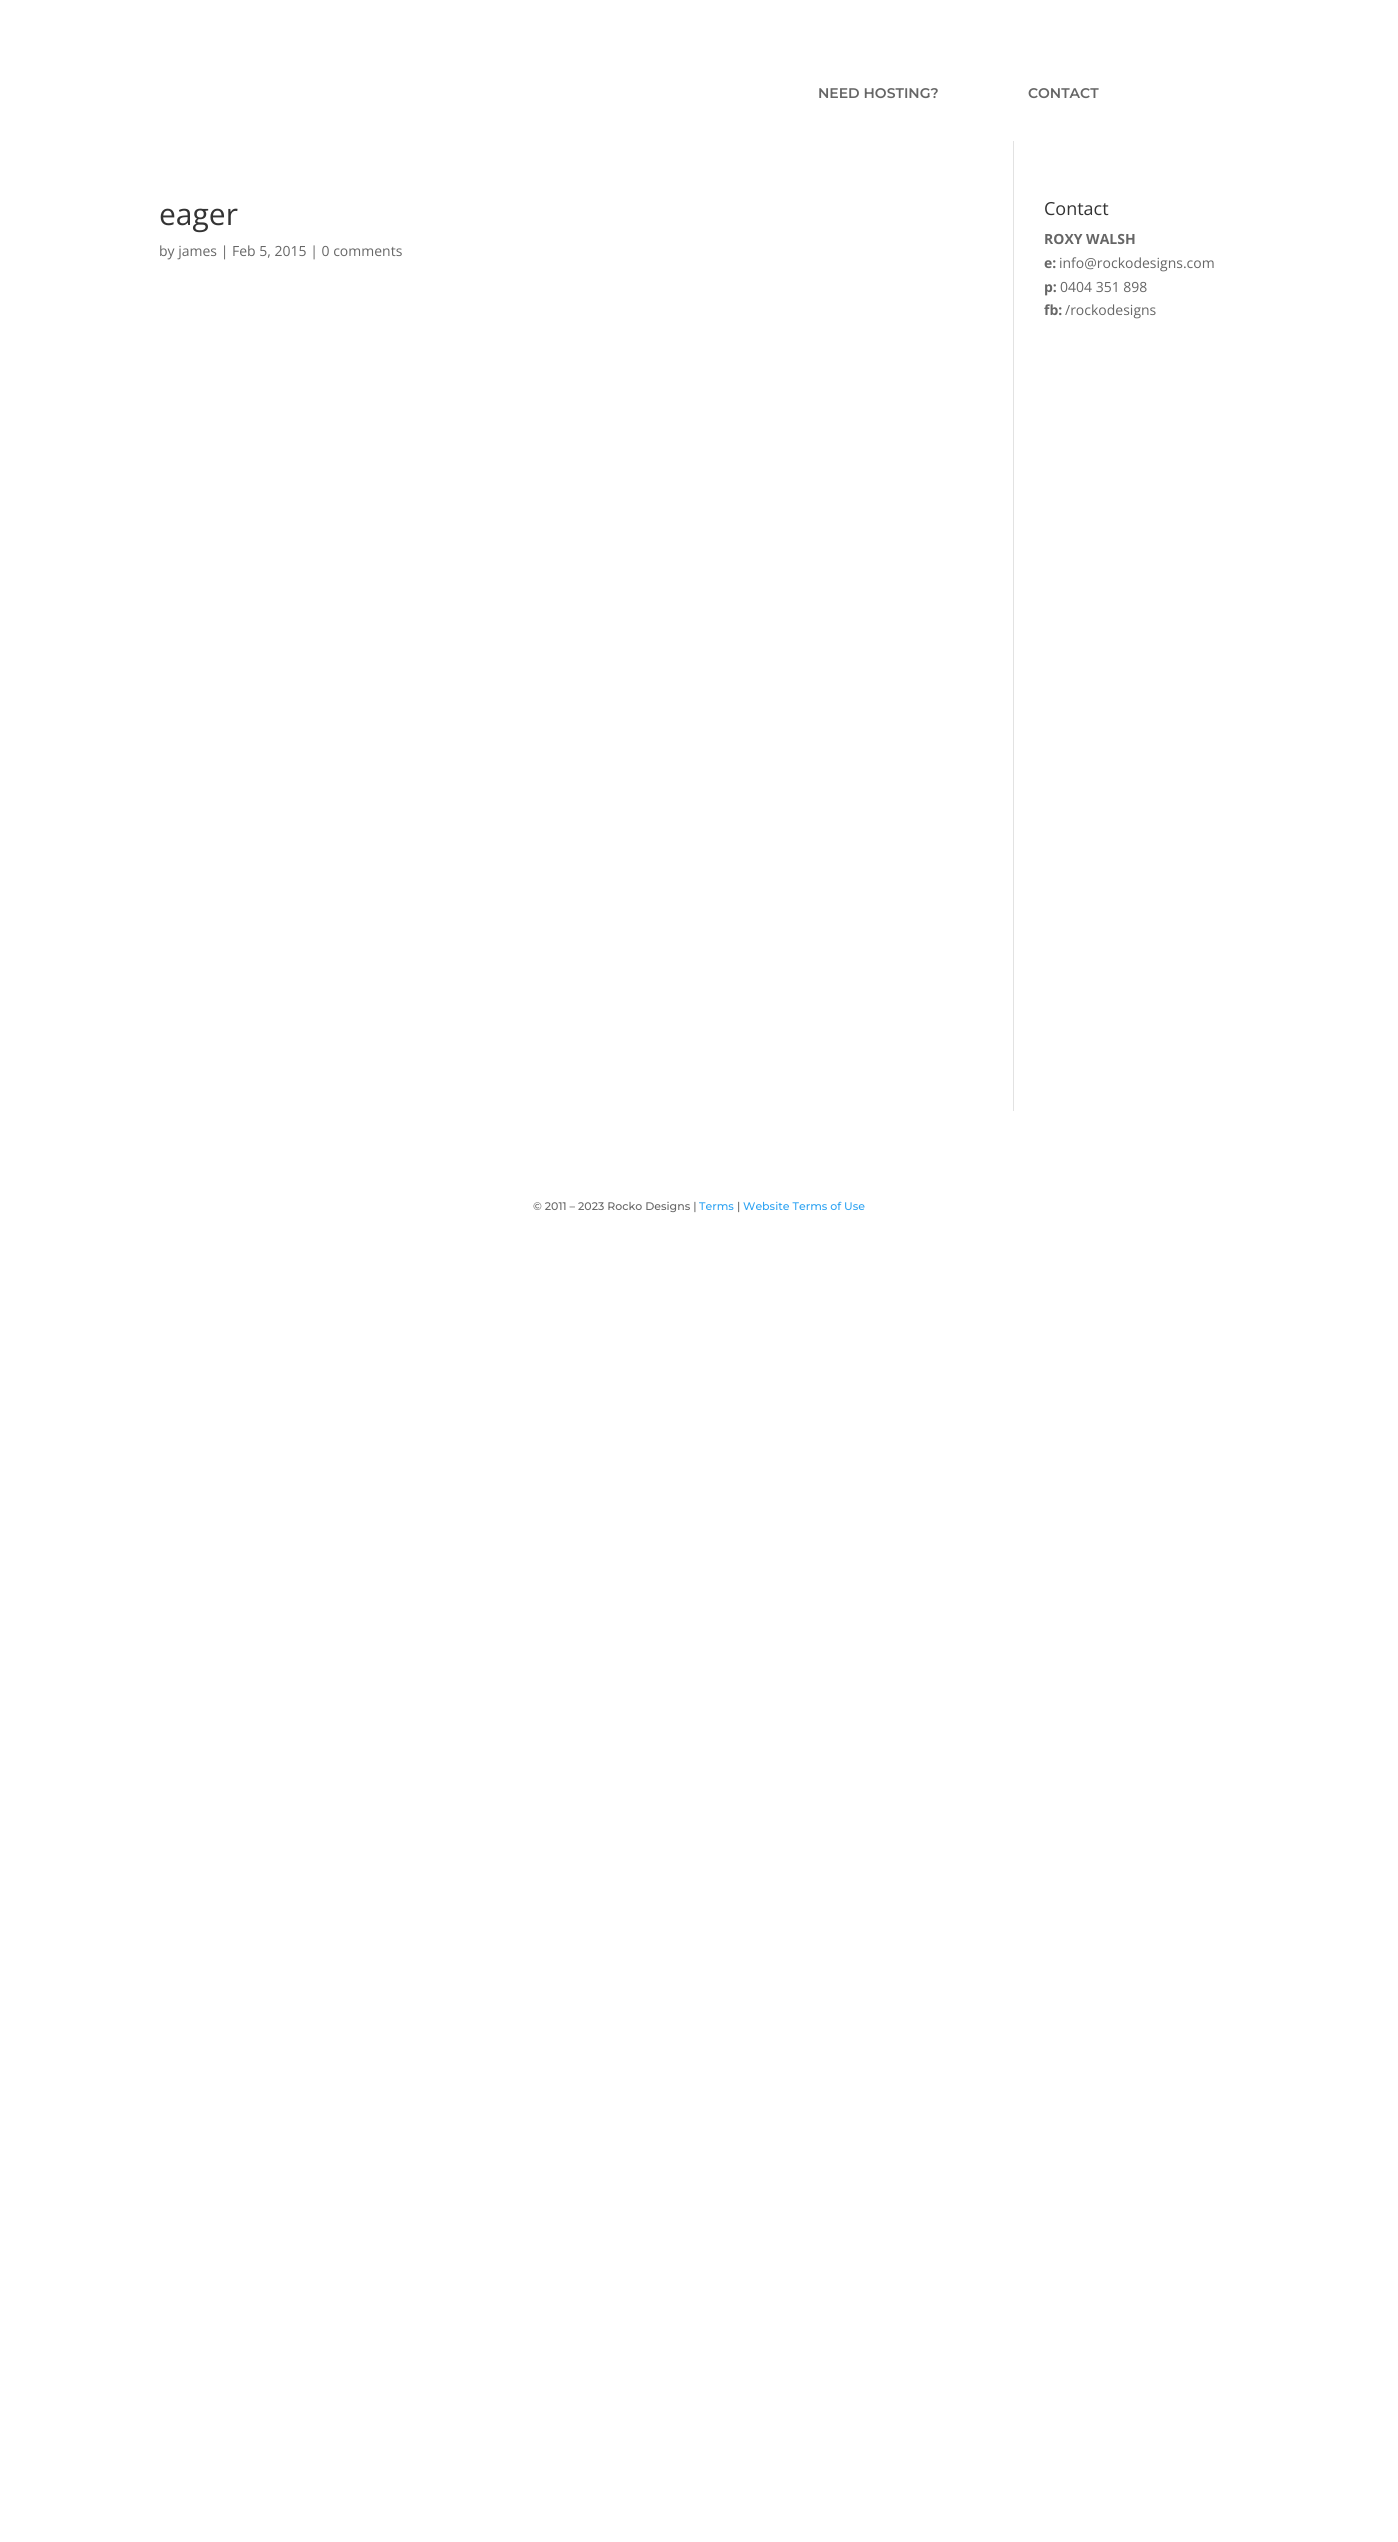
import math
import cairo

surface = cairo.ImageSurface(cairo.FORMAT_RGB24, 1398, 2542)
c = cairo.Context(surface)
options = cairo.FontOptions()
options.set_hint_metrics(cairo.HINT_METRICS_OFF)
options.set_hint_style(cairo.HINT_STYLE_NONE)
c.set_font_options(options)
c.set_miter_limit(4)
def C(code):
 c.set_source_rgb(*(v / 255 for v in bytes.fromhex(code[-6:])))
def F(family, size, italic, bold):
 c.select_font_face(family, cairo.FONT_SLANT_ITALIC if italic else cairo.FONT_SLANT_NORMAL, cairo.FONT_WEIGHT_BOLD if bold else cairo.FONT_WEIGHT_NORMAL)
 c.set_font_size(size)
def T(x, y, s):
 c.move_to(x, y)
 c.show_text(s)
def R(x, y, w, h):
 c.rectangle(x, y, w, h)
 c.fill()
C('ffffff')
c.paint()
F('Montserrat SemiBold',14,0,0)
C('666666')
T(818,98,'NEED HOSTING?')
T(1028,98,'CONTACT')
C('e2e2e2')
R(1013,141,1,970)
F('Open Sans',30,0,0)
C('333333')
T(159,225,'eager')
F('Open Sans',14,0,0)
C('666666')
T(159,256,'by james | Feb 5, 2015 | 0 comments')
F('Open Sans',18,0,0)
C('333333')
T(1044,215,'Contact')
F('Open Sans',14,0,1)
C('666666')
T(1044,244,'ROXY WALSH')
T(1044,268,'e:')
F('Open Sans',14,0,0)
T(1059,268,'info@rockodesigns.com')
F('Open Sans',14,0,1)
T(1044,292,'p:')
F('Open Sans',14,0,0)
T(1060,292,'0404 351 898')
F('Open Sans',14,0,1)
T(1044,315,'fb:')
F('Open Sans',14,0,0)
T(1065,315,'/rockodesigns')
F('Montserrat Medium',11,0,0)
T(533,1210,'© 2011 – 2023 Rocko Designs |')
C('2ea3f2')
T(699,1210,'Terms')
C('666666')
T(737,1210,'|')
C('2ea3f2')
T(743,1210,'Website Terms of Use')
surface.write_to_png('o.png')
